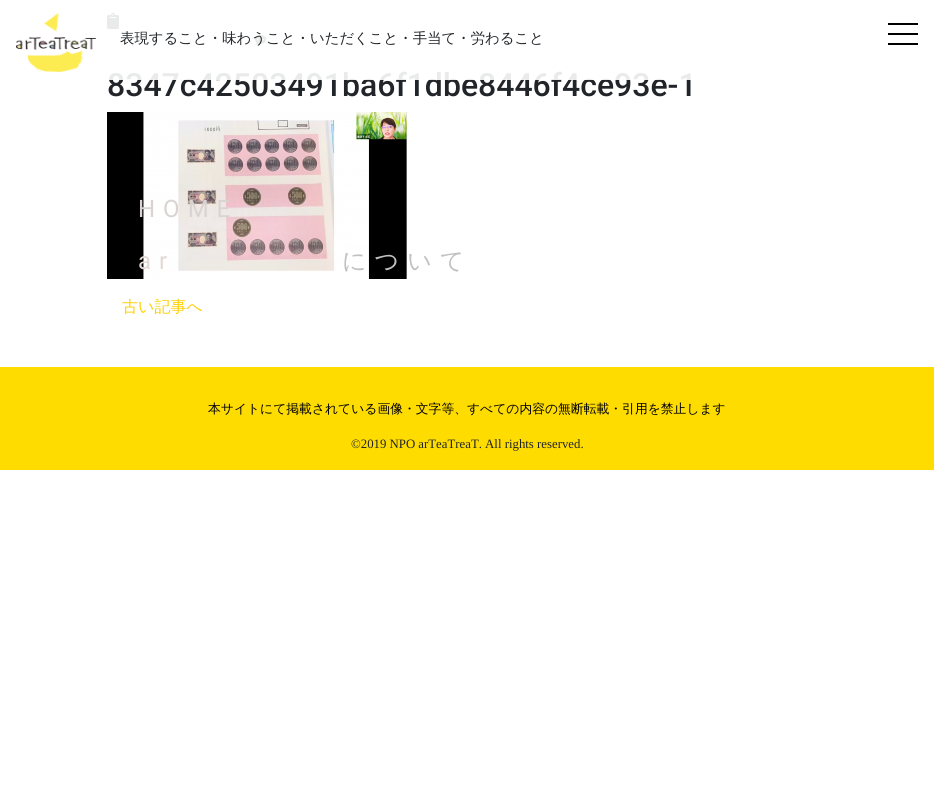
import math
import cairo

surface = cairo.ImageSurface(cairo.FORMAT_RGB24, 934, 801)
c = cairo.Context(surface)
options = cairo.FontOptions()
options.set_hint_metrics(cairo.HINT_METRICS_OFF)
options.set_hint_style(cairo.HINT_STYLE_NONE)
c.set_font_options(options)
c.set_miter_limit(4)
def C(code):
 c.set_source_rgb(*(v / 255 for v in bytes.fromhex(code[-6:])))
def F(family, size, italic, bold):
 c.select_font_face(family, cairo.FONT_SLANT_ITALIC if italic else cairo.FONT_SLANT_NORMAL, cairo.FONT_WEIGHT_BOLD if bold else cairo.FONT_WEIGHT_NORMAL)
 c.set_font_size(size)
def T(x, y, s):
 c.move_to(x, y)
 c.show_text(s)
def L(x, y, s, letter, word):
 c.move_to(x, y)
 for ch in s:
  c.show_text(ch)
  c.rel_move_to(letter + word * (ch == ' '), 0)
def R(x, y, w, h):
 c.rectangle(x, y, w, h)
 c.fill()
def I(path, x, y, w, h):
 c.save()
 c.set_source_surface(cairo.ImageSurface.create_from_png(path), x, y)
 c.rectangle(x, y, w, h)
 c.fill()
 c.restore()
C('ffffff')
c.paint()
I('2.png',107,13,12,16)
I('3.png',255,34,12,11)
F('Roboto Medium',32,0,0)
C('212529')
T(107,96,'8347c42503491ba6f1dbe8446f4ce93e-1')
c.set_source_rgba(1,1,1,0.9)
R(107,13,584,67)
I('1.png',16,13,80,59)
F('WenQuanYi Zen Hei Medium',14.4,0,0)
C('212529')
T(120,43,'表現すること・味わうこと・いただくこと・手当て・労わること')
C('000000')
R(888,23,30,2)
R(888,33,30,2)
R(888,43,30,2)
I('4.png',107,112,300,167)
F('WenQuanYi Zen Hei Medium',16,0,0)
C('ffd000')
T(122,312,'古い記事へ')
F('Roboto',24,0,0)
C('d9d4d2')
L(138,217,'HOME',8,0)
C('e3d8d5')
L(138,269,'ar',8,0)
F('WenQuanYi Zen Hei Medium',24,0,0)
C('c1c1c1')
L(342,269,'について',8,0)
C('ffdc00')
R(0,367,934,103)
F('WenQuanYi Zen Hei Medium',12.8,0,0)
C('000000')
T(208,413,'本サイトにて掲載されている画像・文字等、すべての内容の無断転載・引用を禁止します')
F('Liberation Serif',12.8,0,0)
C('212529')
T(351,448,'©2019 NPO arTeaTreaT. All rights reserved.')
surface.write_to_png('o.png')
